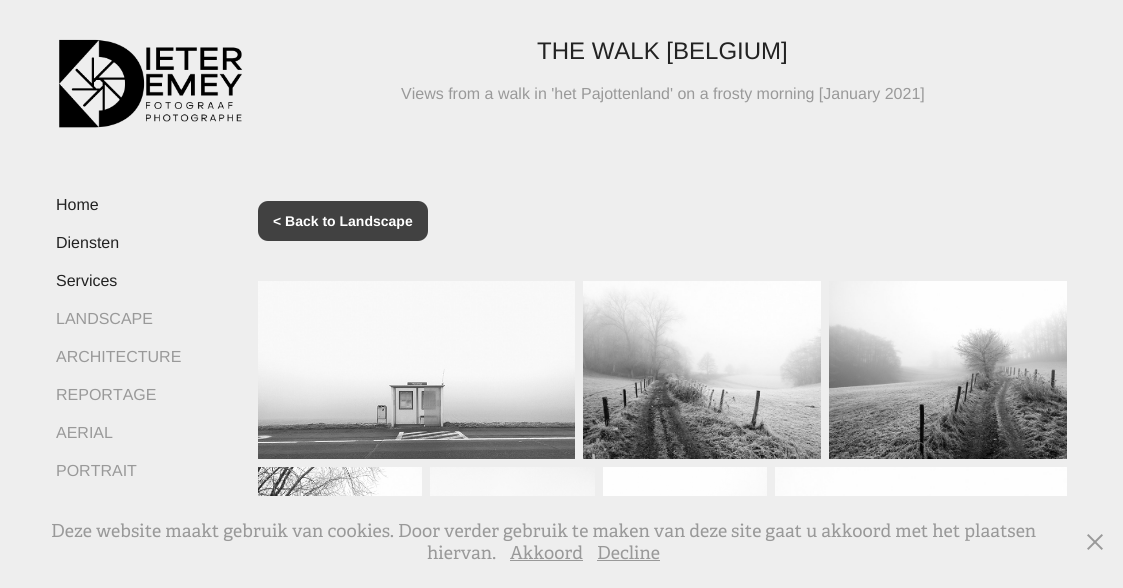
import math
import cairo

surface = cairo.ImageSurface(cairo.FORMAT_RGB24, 1123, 588)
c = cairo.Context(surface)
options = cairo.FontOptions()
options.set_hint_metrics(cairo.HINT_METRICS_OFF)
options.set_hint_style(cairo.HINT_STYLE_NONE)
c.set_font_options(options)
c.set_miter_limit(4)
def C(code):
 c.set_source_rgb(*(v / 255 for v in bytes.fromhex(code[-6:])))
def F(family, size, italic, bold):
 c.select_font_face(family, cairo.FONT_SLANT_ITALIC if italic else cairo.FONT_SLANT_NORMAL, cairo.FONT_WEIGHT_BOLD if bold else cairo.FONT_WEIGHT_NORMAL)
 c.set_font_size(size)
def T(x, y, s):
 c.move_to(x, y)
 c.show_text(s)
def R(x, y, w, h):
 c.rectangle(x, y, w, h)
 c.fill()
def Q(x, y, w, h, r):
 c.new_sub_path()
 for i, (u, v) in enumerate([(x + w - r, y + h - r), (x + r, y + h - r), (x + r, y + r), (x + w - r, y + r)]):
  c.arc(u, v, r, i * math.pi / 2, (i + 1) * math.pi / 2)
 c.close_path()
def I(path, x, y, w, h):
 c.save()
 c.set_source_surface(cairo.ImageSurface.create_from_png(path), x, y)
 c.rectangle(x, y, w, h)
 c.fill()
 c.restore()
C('eeeeee')
c.paint()
F('Liberation Sans',24,0,0)
C('222222')
T(537,59,'THE WALK [BELGIUM]')
F('Liberation Sans',16,0,0)
C('999999')
T(401,99,'Views from a walk in \'het Pajottenland\' on a frosty morning [January 2021]')
C('414141')
Q(258,201,170,40,10)
c.fill()
F('Liberation Sans',14,0,1)
C('ffffff')
T(273,226,'< Back to Landscape')
I('1.png',258,281,317,178)
I('2.png',583,281,238,178)
I('3.png',829,281,238,178)
I('4.png',258,467,164,29)
I('5.png',430,467,165,29)
I('6.png',603,467,164,29)
I('7.png',775,467,292,29)
I('8.png',59,39,184,89)
F('Liberation Sans',16,0,0)
C('222222')
T(56,210,'Home')
T(56,248,'Diensten')
T(56,286,'Services')
C('999999')
T(56,324,'LANDSCAPE')
T(56,362,'ARCHITECTURE')
T(56,400,'REPORTAGE')
T(56,438,'AERIAL')
T(56,476,'PORTRAIT')
F('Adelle',18,0,0)
T(51,537,'Deze website maakt gebruik van cookies. Door verder gebruik te maken van deze site gaat u akkoord met het plaatsen')
T(427,559,'hiervan.')
T(510,559,'Akkoord')
R(510,560,73,1)
T(597,559,'Decline')
R(597,560,63,1)
I('9.png',1087,534,16,16)
surface.write_to_png('o.png')
